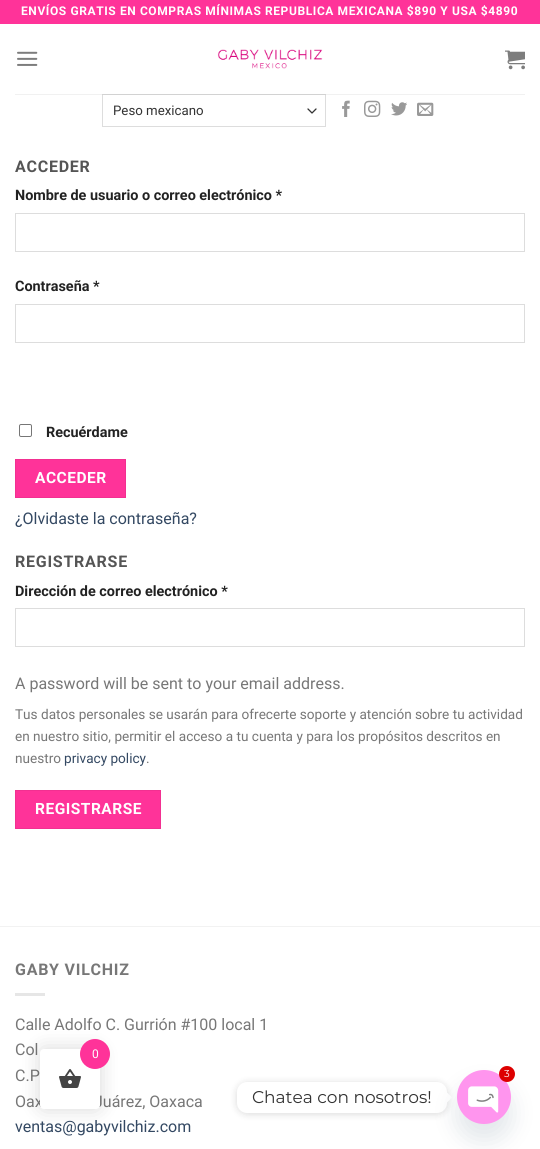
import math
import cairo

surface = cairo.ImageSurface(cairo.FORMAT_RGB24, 540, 1149)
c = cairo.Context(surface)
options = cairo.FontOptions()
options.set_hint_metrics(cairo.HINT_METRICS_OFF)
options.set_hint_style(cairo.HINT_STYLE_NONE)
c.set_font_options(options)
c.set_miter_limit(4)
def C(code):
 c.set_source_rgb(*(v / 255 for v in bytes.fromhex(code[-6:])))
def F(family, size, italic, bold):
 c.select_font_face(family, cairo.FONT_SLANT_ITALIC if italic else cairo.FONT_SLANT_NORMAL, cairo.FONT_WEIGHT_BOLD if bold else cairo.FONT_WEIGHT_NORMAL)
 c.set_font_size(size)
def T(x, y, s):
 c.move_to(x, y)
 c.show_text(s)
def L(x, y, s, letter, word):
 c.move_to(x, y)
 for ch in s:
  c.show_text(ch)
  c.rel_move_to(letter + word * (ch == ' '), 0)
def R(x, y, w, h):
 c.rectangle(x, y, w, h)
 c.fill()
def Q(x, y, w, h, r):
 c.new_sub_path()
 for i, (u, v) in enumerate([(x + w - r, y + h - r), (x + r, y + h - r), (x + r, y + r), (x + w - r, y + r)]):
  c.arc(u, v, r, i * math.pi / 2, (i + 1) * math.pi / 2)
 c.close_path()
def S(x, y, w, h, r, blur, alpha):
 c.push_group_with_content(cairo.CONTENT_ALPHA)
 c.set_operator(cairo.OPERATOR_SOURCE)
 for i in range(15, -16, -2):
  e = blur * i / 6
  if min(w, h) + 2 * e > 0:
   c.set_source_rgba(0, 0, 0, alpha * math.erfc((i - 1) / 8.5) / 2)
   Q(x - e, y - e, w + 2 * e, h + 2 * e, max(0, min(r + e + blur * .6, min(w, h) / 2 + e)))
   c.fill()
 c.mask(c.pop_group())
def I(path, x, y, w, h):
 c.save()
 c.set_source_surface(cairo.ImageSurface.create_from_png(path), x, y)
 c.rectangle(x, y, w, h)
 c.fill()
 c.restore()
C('ffffff')
c.paint()
C('ff3399')
R(0,0,540,24)
F('Roboto',12,0,1)
C('ffffff')
L(21,15,'ENVÍOS GRATIS EN COMPRAS MÍNIMAS REPUBLICA MEXICANA $890 Y USA $4890',.6,0)
I('1.png',17,51,21,15)
I('2.png',217,49,106,20)
I('3.png',505,50,20,20)
c.new_path()
c.move_to(308,109)
c.line_to(312,113)
c.line_to(316,109)
C('333333')
c.set_line_width(1.3)
c.set_line_cap(cairo.LINE_CAP_ROUND)
c.set_line_join(cairo.LINE_JOIN_ROUND)
c.stroke()
c.rectangle(102.5,94.5,223,32)
C('dddddd')
c.set_line_width(1)
c.set_line_cap(cairo.LINE_CAP_BUTT)
c.set_line_join(cairo.LINE_JOIN_MITER)
c.stroke()
c.set_source_rgba(0.467,0.467,0.467,0.1)
R(15,94,510,1)
F('Roboto',13.25,0,0)
C('333333')
T(113,115,'Peso mexicano')
I('4.png',342,100,8,17)
I('5.png',364,100,17,17)
I('6.png',391,102,16,14)
I('7.png',417,102,17,14)
F('Roboto',16,0,1)
C('555555')
L(15,172,'ACCEDER',.75,0)
F('Roboto',14.4,0,1)
C('222222')
T(15,200,'Nombre de usuario o correo electrónico *')
c.rectangle(15.5,213.5,509,38)
C('dddddd')
c.stroke()
C('222222')
T(15,291,'Contraseña *')
c.rectangle(15.5,304.5,509,38)
C('dddddd')
c.stroke()
Q(19.5,424.5,12,12,1.5)
C('767676')
c.stroke()
C('222222')
T(46,437,'Recuérdame')
C('ff3399')
c.rectangle(15.5,459.5,110,38)
c.fill_preserve()
C('f23091')
c.stroke()
F('Roboto',15.5,0,1)
C('ffffff')
L(35,483,'ACCEDER',.5,0)
F('Roboto',16,0,0)
C('334862')
T(15,524,'¿Olvidaste la contraseña?')
F('Roboto',16,0,1)
C('555555')
L(15,567,'REGISTRARSE',.75,0)
F('Roboto',14.4,0,1)
C('222222')
T(15,596,'Dirección de correo electrónico *')
c.rectangle(15.5,608.5,509,38)
C('dddddd')
c.stroke()
F('Roboto',16,0,0)
C('777777')
T(15,689,'A password will be sent to your email address.')
F('Roboto',13.6,0,0)
T(15,719,'Tus datos personales se usarán para ofrecerte soporte y atención sobre tu actividad')
T(15,741,'en nuestro sitio, permitir el acceso a tu cuenta y para los propósitos descritos en')
T(15,763,'nuestro')
C('334862')
T(64,763,'privacy policy')
C('777777')
T(146,763,'.')
C('ff3399')
c.rectangle(15.5,790.5,145,38)
c.fill_preserve()
C('f23091')
c.stroke()
F('Roboto',15.5,0,1)
C('ffffff')
L(35,814,'REGISTRARSE',.5,0)
C('f2f2f2')
R(0,926,540,1)
F('Roboto',16,0,1)
C('777777')
L(15,975,'GABY VILCHIZ',.75,0)
C('e6e6e6')
R(15,993,30,3)
F('Roboto',16,0,0)
C('777777')
T(15,1030,'Calle Adolfo C. Gurrión #100 local 1')
T(15,1055,'Col')
T(15,1081,'C.P')
T(15,1107,'Oax')
T(94,1107,'Juárez, Oaxaca')
C('334862')
T(15,1132,'ventas@gabyvilchiz.com')
C('000000')
S(40,1049,60,60,4,10,.15)
C('ffffff')
Q(40,1049,60,60,4)
c.fill()
C('ff3399')
c.arc(95,1054,15,0,2 * math.pi)
c.fill()
F('Roboto',12,0,0)
C('ffffff')
T(92,1058,'0')
I('8.png',59,1069,22,19)
C('000000')
S(237,1083,210,31,10,4,.15)
C('ffffff')
Q(237,1082,210,31,10)
c.fill()
c.new_path()
c.move_to(447,1102.5)
c.line_to(447,1092.5)
c.line_to(452,1097.5)
c.close_path()
c.fill()
C('49687e')
S(457,1086,54,54,27,12,.16)
I('9.png',457,1070,54,54)
C('dd0000')
c.arc(507,1074,8,0,2 * math.pi)
c.fill()
F('Montserrat Thin',10,0,0)
C('ffffff')
T(504,1077,'3')
F('Montserrat Thin',17,0,0)
C('333333')
T(252,1103,'Chatea con nosotros!')
surface.write_to_png('o.png')
